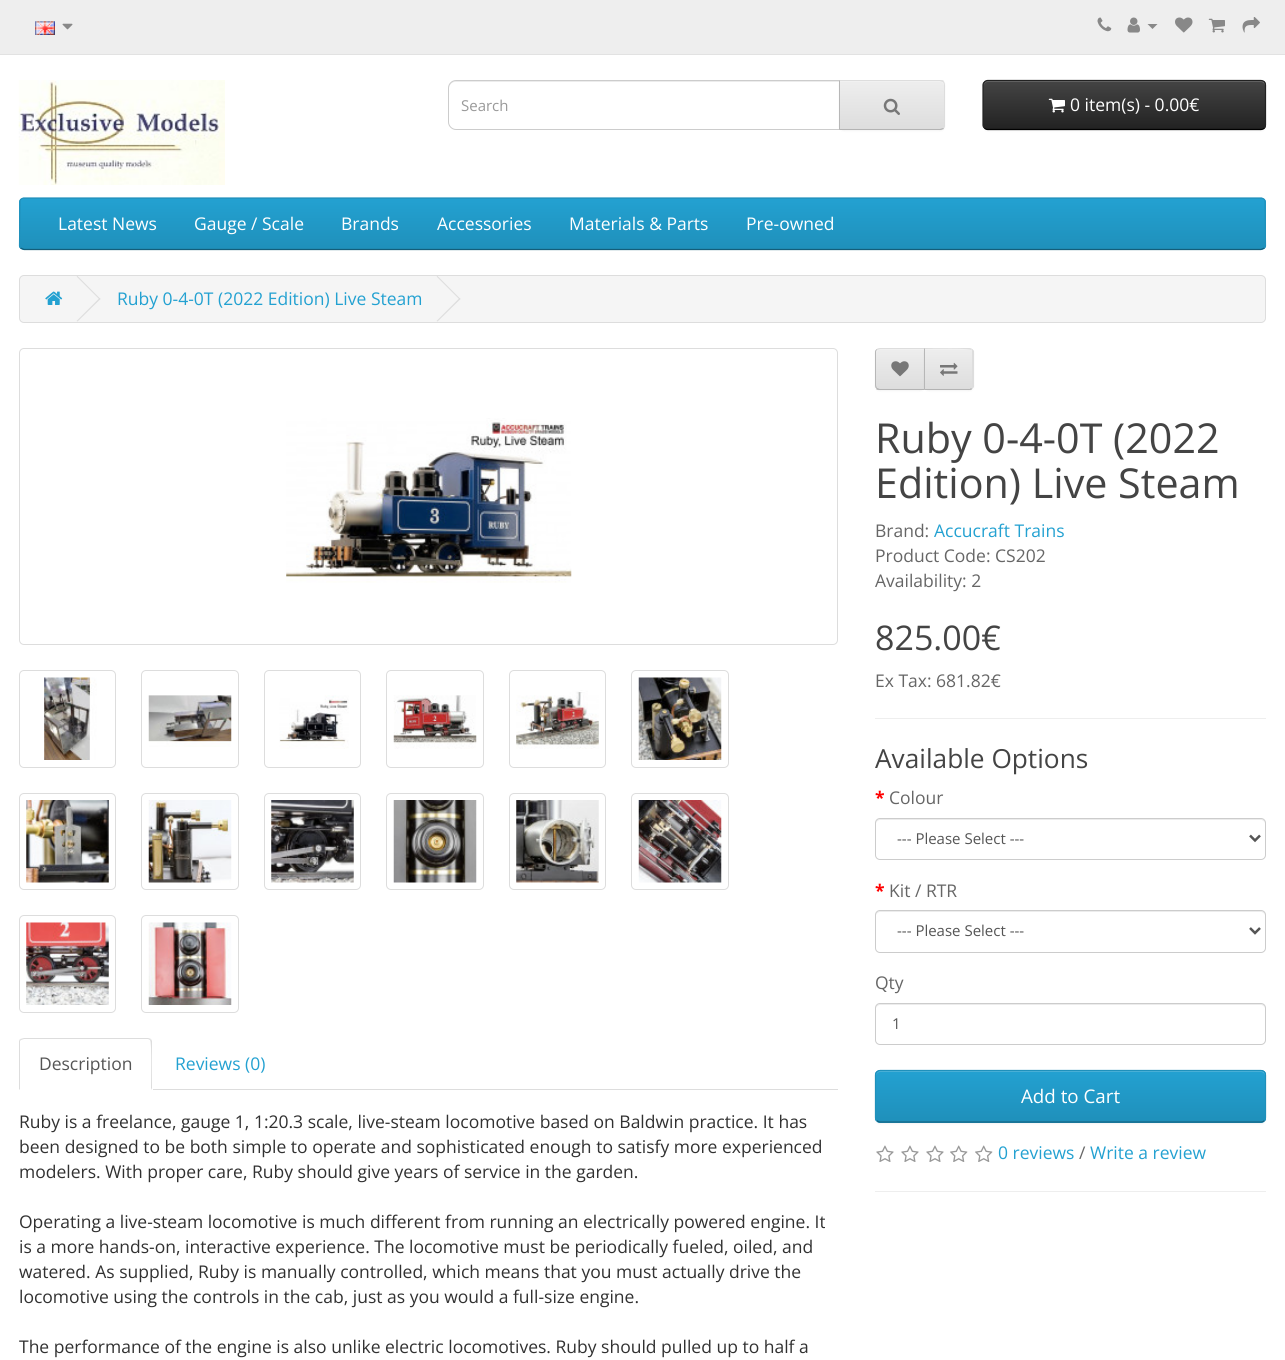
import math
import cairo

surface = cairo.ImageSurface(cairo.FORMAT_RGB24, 1285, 1360)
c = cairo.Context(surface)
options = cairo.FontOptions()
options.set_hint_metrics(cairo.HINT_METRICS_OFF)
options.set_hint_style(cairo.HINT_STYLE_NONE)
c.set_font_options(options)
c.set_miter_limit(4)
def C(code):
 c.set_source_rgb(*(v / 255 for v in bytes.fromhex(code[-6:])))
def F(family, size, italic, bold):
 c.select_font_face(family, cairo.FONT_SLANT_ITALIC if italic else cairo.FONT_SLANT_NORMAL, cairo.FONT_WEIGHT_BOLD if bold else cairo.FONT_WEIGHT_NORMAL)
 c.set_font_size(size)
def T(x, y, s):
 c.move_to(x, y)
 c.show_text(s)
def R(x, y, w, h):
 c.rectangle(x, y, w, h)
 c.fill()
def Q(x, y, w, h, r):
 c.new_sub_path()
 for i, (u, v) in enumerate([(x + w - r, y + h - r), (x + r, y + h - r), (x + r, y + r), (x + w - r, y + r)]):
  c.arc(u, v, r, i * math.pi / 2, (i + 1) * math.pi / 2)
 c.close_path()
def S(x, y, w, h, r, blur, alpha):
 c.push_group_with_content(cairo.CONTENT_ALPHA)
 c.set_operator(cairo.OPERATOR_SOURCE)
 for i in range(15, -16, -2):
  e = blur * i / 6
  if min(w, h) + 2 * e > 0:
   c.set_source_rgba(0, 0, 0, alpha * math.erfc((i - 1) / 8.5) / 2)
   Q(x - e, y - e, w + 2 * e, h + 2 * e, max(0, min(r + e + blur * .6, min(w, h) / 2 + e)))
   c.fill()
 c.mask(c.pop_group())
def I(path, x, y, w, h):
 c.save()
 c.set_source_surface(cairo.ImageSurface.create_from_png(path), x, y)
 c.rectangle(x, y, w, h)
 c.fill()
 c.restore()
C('ffffff')
c.paint()
C('eeeeee')
R(0,0,1285,54)
C('e2e2e2')
R(0,54,1285,1)
I('1.png',35,21,20,14)
I('2.png',62,23,11,7)
I('3.png',1097,17,15,15)
I('4.png',1127,17,13,16)
C('888888')
c.new_path()
c.move_to(1147.5,24)
c.line_to(1157.5,24)
c.line_to(1152.5,29)
c.close_path()
c.fill()
I('5.png',1175,17,18,16)
I('6.png',1208,18,17,15)
I('7.png',1242,17,18,16)
I('8.png',18,80,207,105)
C('ececec')
c.new_path()
c.move_to(455,82)
c.line_to(839,82)
c.line_to(839,81)
c.line_to(455,81)
c.curve_to(450,81,449,85,449,89)
c.curve_to(449,85,452,82,455,82)
c.close_path()
c.fill()
c.new_path()
c.move_to(456,80.5)
c.line_to(839.5,80.5)
c.line_to(839.5,129.5)
c.line_to(456,129.5)
c.curve_to(452,129.5,448.5,126,448.5,122)
c.line_to(448.5,88)
c.curve_to(448.5,84,452,80.5,456,80.5)
c.close_path()
C('cccccc')
c.set_line_width(1)
c.stroke()
F('Open Sans',15,0,0)
C('999999')
T(461,111,'Search')
C('000000')
S(839,81,106,50,5,1,.05)
c.save()
c.new_path()
c.move_to(839,80)
c.line_to(940,80)
c.curve_to(943,80,945,82,945,85)
c.line_to(945,125)
c.curve_to(945,128,943,130,940,130)
c.line_to(839,130)
c.close_path()
c.clip()
gradient = cairo.LinearGradient(892,81,892,129)
gradient.add_color_stop_rgba(0,0.933,0.933,0.933,1)
gradient.add_color_stop_rgba(1,0.867,0.867,0.867,1)
c.set_source(gradient)
R(840,81,105,48)
c.restore()
C('f1f1f1')
c.new_path()
c.move_to(840,82)
c.line_to(940,82)
c.curve_to(942,82,944,84,944,86)
c.line_to(944,85)
c.curve_to(944,83,942,81,940,81)
c.line_to(840,81)
c.close_path()
c.fill()
C('dddddd')
c.new_path()
c.move_to(839,80)
c.line_to(840,81)
c.line_to(940,81)
c.line_to(943,82)
c.line_to(944,81)
c.curve_to(943,80,942,80,940,80)
c.close_path()
c.fill()
c.new_path()
c.move_to(945,125)
c.line_to(945,85)
c.curve_to(945,84,944,82,944,81)
c.line_to(943,82)
c.curve_to(944,83,944,84,944,85)
c.line_to(944,125)
c.curve_to(944,126,944,127,943,128)
c.line_to(944,129)
c.curve_to(944,128,945,126,945,125)
c.close_path()
c.fill()
C('b3b3b3')
c.new_path()
c.move_to(839,130)
c.line_to(941,130)
c.line_to(944,129)
c.line_to(943,128)
c.line_to(940,129)
c.line_to(840,129)
c.close_path()
c.fill()
C('b7b7b7')
c.new_path()
c.move_to(839,80)
c.line_to(839,130)
c.line_to(840,129)
c.line_to(840,81)
c.close_path()
c.fill()
I('9.png',883,98,17,17)
C('000000')
S(983,81,283,50,5,1,.05)
c.save()
Q(983,80,283,50,5)
c.clip()
gradient = cairo.LinearGradient(1124,81,1124,129)
gradient.add_color_stop_rgba(0,0.267,0.267,0.267,1)
gradient.add_color_stop_rgba(1,0.133,0.133,0.133,1)
c.set_source(gradient)
R(983,81,283,48)
c.restore()
C('696969')
c.new_path()
c.move_to(988,82)
c.line_to(1261,82)
c.curve_to(1263,82,1265,84,1265,86)
c.curve_to(1265,83,1264,81,1261,81)
c.line_to(988,81)
c.curve_to(985,81,984,83,984,86)
c.curve_to(984,84,985,82,988,82)
c.close_path()
c.fill()
c.new_path()
c.move_to(1264.5,128)
c.curve_to(1263.5,129,1262.5,129.5,1261,129.5)
c.line_to(987.5,129.5)
c.curve_to(986.5,129.5,985,129,984.5,128)
C('000000')
c.set_line_width(1.2)
c.stroke()
c.new_path()
c.move_to(984.5,128)
c.curve_to(983.5,127.5,983,126,983,125)
c.line_to(983,85)
c.curve_to(983,84,983.5,82.5,984.5,82)
c.curve_to(985,81,986.5,80.5,987.5,80.5)
c.line_to(1261,80.5)
c.curve_to(1262.5,80.5,1263.5,81,1264.5,82)
c.curve_to(1265,82.5,1265.5,84,1265.5,85)
c.line_to(1265.5,125)
c.curve_to(1265.5,126,1265,127.5,1264.5,128)
C('222222')
c.stroke()
I('10.png',1048,98,17,15)
F('Open Sans',17.5,0,0)
C('ffffff')
T(1070,111,'0 item(s) - 0.00€')
C('229ac8')
Q(19,198,1247,52,5)
c.fill()
c.save()
Q(19,198,1247,52,5)
c.clip()
gradient = cairo.LinearGradient(643,199,643,249)
gradient.add_color_stop_rgba(0,0.137,0.631,0.82,1)
gradient.add_color_stop_rgba(1,0.122,0.565,0.733,1)
c.set_source(gradient)
R(19,199,1247,50)
c.restore()
c.new_path()
c.move_to(1264.5,248)
c.line_to(1261,249.5)
c.line_to(24,249.5)
c.line_to(20.5,248)
C('145e7a')
c.stroke()
c.new_path()
c.move_to(20.5,248)
c.line_to(19.5,246)
c.line_to(20,200.5)
c.curve_to(20.5,199,22,198.5,23.5,198)
c.line_to(1261.5,198)
c.curve_to(1263,198.5,1264.5,199,1265,200.5)
c.line_to(1265.5,246)
c.line_to(1264.5,248)
C('1f90bb')
c.stroke()
C('ffffff')
T(58,230,'Latest News')
T(194,230,'Gauge / Scale')
T(341,230,'Brands')
T(437,230,'Accessories')
T(569,230,'Materials & Parts')
T(746,230,'Pre-owned')
C('f5f5f5')
Q(19.5,275.5,1246,47,4.5)
c.fill_preserve()
C('dddddd')
c.set_line_width(1)
c.stroke()
I('11.png',45,291,18,14)
c.new_path()
c.move_to(76.5,276.5)
c.line_to(77.5,276)
c.line_to(100.5,299)
c.line_to(99.5,299.5)
c.close_path()
c.fill()
c.new_path()
c.move_to(76.5,321)
c.line_to(99.5,298)
c.line_to(100.5,299)
c.line_to(77.5,321.5)
c.close_path()
c.fill()
C('23a1d1')
T(117,305,'Ruby 0-4-0T (2022 Edition) Live Steam')
C('dddddd')
c.new_path()
c.move_to(436.5,276.5)
c.line_to(437.5,276)
c.line_to(460.5,299)
c.line_to(459.5,299.5)
c.close_path()
c.fill()
c.new_path()
c.move_to(436.5,321)
c.line_to(459.5,298)
c.line_to(460.5,299)
c.line_to(437.5,321.5)
c.close_path()
c.fill()
C('000000')
S(875,349,50,42,5,1,.05)
C('e7e7e7')
c.new_path()
c.move_to(880,348)
c.line_to(925,348)
c.line_to(925,390)
c.line_to(880,390)
c.curve_to(877,390,875,388,875,385)
c.line_to(875,353)
c.curve_to(875,350,877,348,880,348)
c.close_path()
c.fill()
c.save()
c.new_path()
c.move_to(880,348)
c.line_to(925,348)
c.line_to(925,390)
c.line_to(880,390)
c.curve_to(877,390,875,388,875,385)
c.line_to(875,353)
c.curve_to(875,350,877,348,880,348)
c.close_path()
c.clip()
gradient = cairo.LinearGradient(900,349,900,389)
gradient.add_color_stop_rgba(0,0.933,0.933,0.933,1)
gradient.add_color_stop_rgba(1,0.867,0.867,0.867,1)
c.set_source(gradient)
R(875,349,49,40)
c.restore()
C('f1f1f1')
c.new_path()
c.move_to(880,350)
c.line_to(924,350)
c.line_to(924,349)
c.line_to(880,349)
c.curve_to(878,349,876,351,876,353)
c.line_to(876,354)
c.curve_to(876,352,878,350,880,350)
c.close_path()
c.fill()
C('dddddd')
c.new_path()
c.move_to(880,348)
c.line_to(877,349)
c.line_to(877,350)
c.line_to(880,349)
c.line_to(924,349)
c.line_to(924,348)
c.close_path()
c.fill()
C('b3b3b3')
c.new_path()
c.move_to(925,390)
c.line_to(924,389)
c.line_to(880,389)
c.curve_to(879,389,878,388,877,388)
c.line_to(876,389)
c.curve_to(877,390,878,390,880,390)
c.close_path()
c.fill()
C('b7b7b7')
c.new_path()
c.move_to(875,352)
c.line_to(875,385)
c.curve_to(875,386.5,875.5,388,876.5,388.5)
c.line_to(877,388)
c.curve_to(876.5,387,876,386,876,385)
c.line_to(876,352)
c.curve_to(876,351,876.5,350,877,350)
c.line_to(876.5,349)
c.curve_to(875.5,350,875,351,875,352)
c.close_path()
c.fill()
I('12.png',891,361,18,16)
C('000000')
S(924,349,50,42,5,1,.05)
c.save()
c.new_path()
c.move_to(924,348)
c.line_to(969,348)
c.curve_to(972,348,974,350,974,353)
c.line_to(974,385)
c.curve_to(974,388,972,390,969,390)
c.line_to(924,390)
c.close_path()
c.clip()
gradient = cairo.LinearGradient(949,349,949,389)
gradient.add_color_stop_rgba(0,0.933,0.933,0.933,1)
gradient.add_color_stop_rgba(1,0.867,0.867,0.867,1)
c.set_source(gradient)
R(925,349,49,40)
c.restore()
c.set_source_rgba(1,1,1,0.2)
c.new_path()
c.move_to(925,350)
c.line_to(970,350)
c.curve_to(974,351,972,363,972,365)
c.line_to(972,388)
c.curve_to(972,387,973,386,973,385)
c.line_to(973,353)
c.curve_to(973,351,971,349,969,349)
c.line_to(925,349)
c.close_path()
c.fill()
C('dddddd')
c.new_path()
c.move_to(972,349)
c.curve_to(971,348,970,348,969,348)
c.line_to(924,348)
c.line_to(925,349)
c.curve_to(931,349,970,348,971,350)
c.close_path()
c.fill()
c.new_path()
c.move_to(972.5,349)
c.line_to(974,351)
c.line_to(974,386.5)
c.line_to(972.5,388.5)
c.line_to(971.5,387.5)
c.curve_to(972,387,972,386,972,385)
c.line_to(972,352)
c.curve_to(972,351,972,350.5,971.5,350)
c.close_path()
c.fill()
C('b3b3b3')
c.new_path()
c.move_to(924,390)
c.line_to(969,390)
c.curve_to(970,390,972,390,972,389)
c.line_to(971,388)
c.line_to(970,389)
c.line_to(925,389)
c.close_path()
c.fill()
C('b7b7b7')
c.new_path()
c.move_to(924,348)
c.line_to(924,390)
c.line_to(925,389)
c.line_to(925,349)
c.close_path()
c.fill()
I('13.png',940,362,18,14)
F('Open Sans',41.25,0,0)
C('444444')
T(875,453,'Ruby 0-4-0T (2022')
T(875,498,'Edition) Live Steam')
F('Open Sans',17.5,0,0)
C('666666')
T(875,537,'Brand:')
C('23a1d1')
T(934,537,'Accucraft Trains')
C('666666')
T(875,562,'Product Code: CS202')
T(875,587,'Availability: 2')
F('Open Sans',34,0,0)
C('444444')
T(875,650,'825.00€')
F('Open Sans',17.5,0,0)
C('666666')
T(875,687,'Ex Tax: 681.82€')
C('eeeeee')
R(875,718,391,1)
F('Open Sans',26.25,0,0)
C('444444')
T(875,768,'Available Options')
F('Open Sans',17.5,0,1)
C('ff0000')
T(875,804,'*')
F('Open Sans',17.5,0,0)
C('666666')
T(889,804,'Colour')
C('ececec')
c.new_path()
c.move_to(880,820)
c.line_to(1261,820)
c.curve_to(1263,820,1265,822,1265,824)
c.curve_to(1265,821,1264,819,1261,819)
c.line_to(880,819)
c.curve_to(877,819,876,821,876,824)
c.curve_to(876,822,878,820,880,820)
c.close_path()
c.fill()
Q(875.5,818.5,390,41,4.5)
C('cccccc')
c.stroke()
c.new_path()
c.move_to(1250,835.5)
c.line_to(1255,840.5)
c.line_to(1260,835.5)
C('555555')
c.set_line_width(2.5)
c.stroke()
F('Open Sans',15,0,0)
T(897,844,'--- Please Select ---')
F('Open Sans',17.5,0,1)
C('ff0000')
T(875,897,'*')
F('Open Sans',17.5,0,0)
C('666666')
T(889,897,'Kit / RTR')
C('ececec')
c.new_path()
c.move_to(880,912)
c.line_to(1261,912)
c.curve_to(1263,912,1265,914,1265,916)
c.curve_to(1265,913,1264,911,1261,911)
c.line_to(880,911)
c.curve_to(877,911,876,913,876,916)
c.curve_to(876,914,878,912,880,912)
c.close_path()
c.fill()
Q(875.5,910.5,390,42,4.5)
C('cccccc')
c.set_line_width(1)
c.stroke()
c.new_path()
c.move_to(1250,928)
c.line_to(1255,933)
c.line_to(1260,928)
C('555555')
c.set_line_width(2.5)
c.stroke()
F('Open Sans',15,0,0)
T(897,936,'--- Please Select ---')
F('Open Sans',17.5,0,0)
C('666666')
T(875,989,'Qty')
C('ececec')
c.new_path()
c.move_to(880,1005)
c.line_to(1261,1005)
c.curve_to(1263,1005,1265,1007,1265,1009)
c.curve_to(1265,1006,1264,1004,1261,1004)
c.line_to(880,1004)
c.curve_to(877,1004,876,1006,876,1009)
c.curve_to(876,1007,878,1005,880,1005)
c.close_path()
c.fill()
Q(875.5,1003.5,390,41,4.5)
C('cccccc')
c.set_line_width(1)
c.stroke()
F('Open Sans',15,0,0)
C('555555')
T(892,1029,'1')
C('000000')
S(875,1071,391,53,5,1,.05)
C('229ac8')
Q(875,1070,391,53,5)
c.fill()
c.save()
Q(875,1070,391,53,5)
c.clip()
gradient = cairo.LinearGradient(1071,1071,1071,1121)
gradient.add_color_stop_rgba(0,0.137,0.631,0.82,1)
gradient.add_color_stop_rgba(1,0.122,0.565,0.733,1)
c.set_source(gradient)
R(875,1071,391,50)
c.restore()
C('4fb4da')
c.new_path()
c.move_to(880,1072)
c.line_to(1261,1072)
c.curve_to(1263,1072,1265,1074,1265,1076)
c.curve_to(1265,1073,1264,1071,1261,1071)
c.line_to(880,1071)
c.curve_to(877,1071,876,1073,876,1076)
c.curve_to(876,1074,878,1072,880,1072)
c.close_path()
c.fill()
c.new_path()
c.move_to(1264.5,1120.5)
c.curve_to(1263.5,1121.5,1262.5,1122,1261,1122)
c.line_to(880,1122)
c.curve_to(879,1122,877.5,1121.5,877,1120.5)
C('145e7a')
c.set_line_width(1.2)
c.stroke()
c.new_path()
c.move_to(877,1120.5)
c.curve_to(876,1120,875.5,1118.5,875.5,1117.5)
c.line_to(875.5,1075)
c.curve_to(875.5,1074,876,1072.5,877,1072)
c.curve_to(877.5,1071,879,1070.5,880,1070.5)
c.line_to(1261,1070.5)
c.curve_to(1262.5,1070.5,1263.5,1071,1264.5,1072)
c.curve_to(1265,1072.5,1265.5,1074,1265.5,1075)
c.line_to(1265.5,1117.5)
c.curve_to(1265.5,1118.5,1265,1120,1264.5,1120.5)
C('1f90bb')
c.stroke()
F('Open Sans',18.75,0,0)
C('ffffff')
T(1021,1103,'Add to Cart')
I('14.png',876,1145,18,17)
I('14.png',901,1145,18,17)
I('14.png',926,1145,18,17)
I('15.png',950,1145,18,17)
I('15.png',975,1145,18,17)
F('Open Sans',17.5,0,0)
C('23a1d1')
T(998,1159,'0 reviews')
C('666666')
T(1079,1159,'/')
C('23a1d1')
T(1090,1159,'Write a review')
C('eeeeee')
R(875,1191,391,1)
Q(19.5,348.5,818,296,4.5)
C('dddddd')
c.set_line_width(1)
c.stroke()
I('16.png',286,418,286,165)
Q(19.5,670.5,96,97,4.5)
c.stroke()
I('17.png',44,677,53,83)
Q(141.5,670.5,97,97,4.5)
c.stroke()
I('18.png',148,695,84,52)
Q(264.5,670.5,96,97,4.5)
c.stroke()
I('19.png',279,695,70,54)
Q(386.5,670.5,97,97,4.5)
c.stroke()
I('20.png',393,695,84,54)
Q(509.5,670.5,96,97,4.5)
c.stroke()
I('21.png',516,690,83,59)
Q(631.5,670.5,97,97,4.5)
c.stroke()
I('22.png',638,677,84,83)
Q(19.5,793.5,96,96,4.5)
c.stroke()
I('23.png',26,800,83,83)
Q(141.5,793.5,97,96,4.5)
c.stroke()
I('24.png',148,800,84,83)
Q(264.5,793.5,96,96,4.5)
c.stroke()
I('25.png',271,800,83,83)
Q(386.5,793.5,97,96,4.5)
c.stroke()
I('26.png',393,800,84,83)
Q(509.5,793.5,96,96,4.5)
c.stroke()
I('27.png',516,800,83,83)
Q(631.5,793.5,97,96,4.5)
c.stroke()
I('28.png',638,800,84,83)
Q(19.5,915.5,96,97,4.5)
c.stroke()
I('29.png',26,922,83,83)
Q(141.5,915.5,97,97,4.5)
c.stroke()
I('30.png',148,922,84,83)
R(153,1089,685,1)
c.new_path()
c.move_to(24,1038)
c.line_to(20,1039)
c.line_to(21,1040)
c.line_to(24,1039)
c.line_to(148,1039)
c.line_to(150,1040)
c.line_to(151,1039)
c.line_to(148,1038)
c.close_path()
c.fill()
c.new_path()
c.move_to(152,1090)
c.line_to(152,1041)
c.line_to(151,1039)
c.line_to(150,1040)
c.curve_to(152,1042,151,1083,151,1088)
c.close_path()
c.fill()
c.new_path()
c.move_to(20,1039)
c.line_to(19,1041)
c.line_to(19,1090)
c.line_to(20,1089)
c.line_to(20,1041)
c.line_to(21,1040)
c.close_path()
c.fill()
C('555555')
T(39,1070,'Description')
C('23a1d1')
T(175,1070,'Reviews (0)')
C('313131')
T(19,1128,'Ruby is a freelance, gauge 1, 1:20.3 scale, live-steam locomotive based on Baldwin practice. It has')
T(19,1153,'been designed to be both simple to operate and sophisticated enough to satisfy more experienced')
T(19,1178,'modelers. With proper care, Ruby should give years of service in the garden.')
T(19,1228,'Operating a live-steam locomotive is much different from running an electrically powered engine. It')
T(19,1253,'is a more hands-on, interactive experience. The locomotive must be periodically fueled, oiled, and')
T(19,1278,'watered. As supplied, Ruby is manually controlled, which means that you must actually drive the')
T(19,1303,'locomotive using the controls in the cab, just as you would a full-size engine.')
T(19,1353,'The performance of the engine is also unlike electric locomotives. Ruby should pulled up to half a')
surface.write_to_png('o.png')
